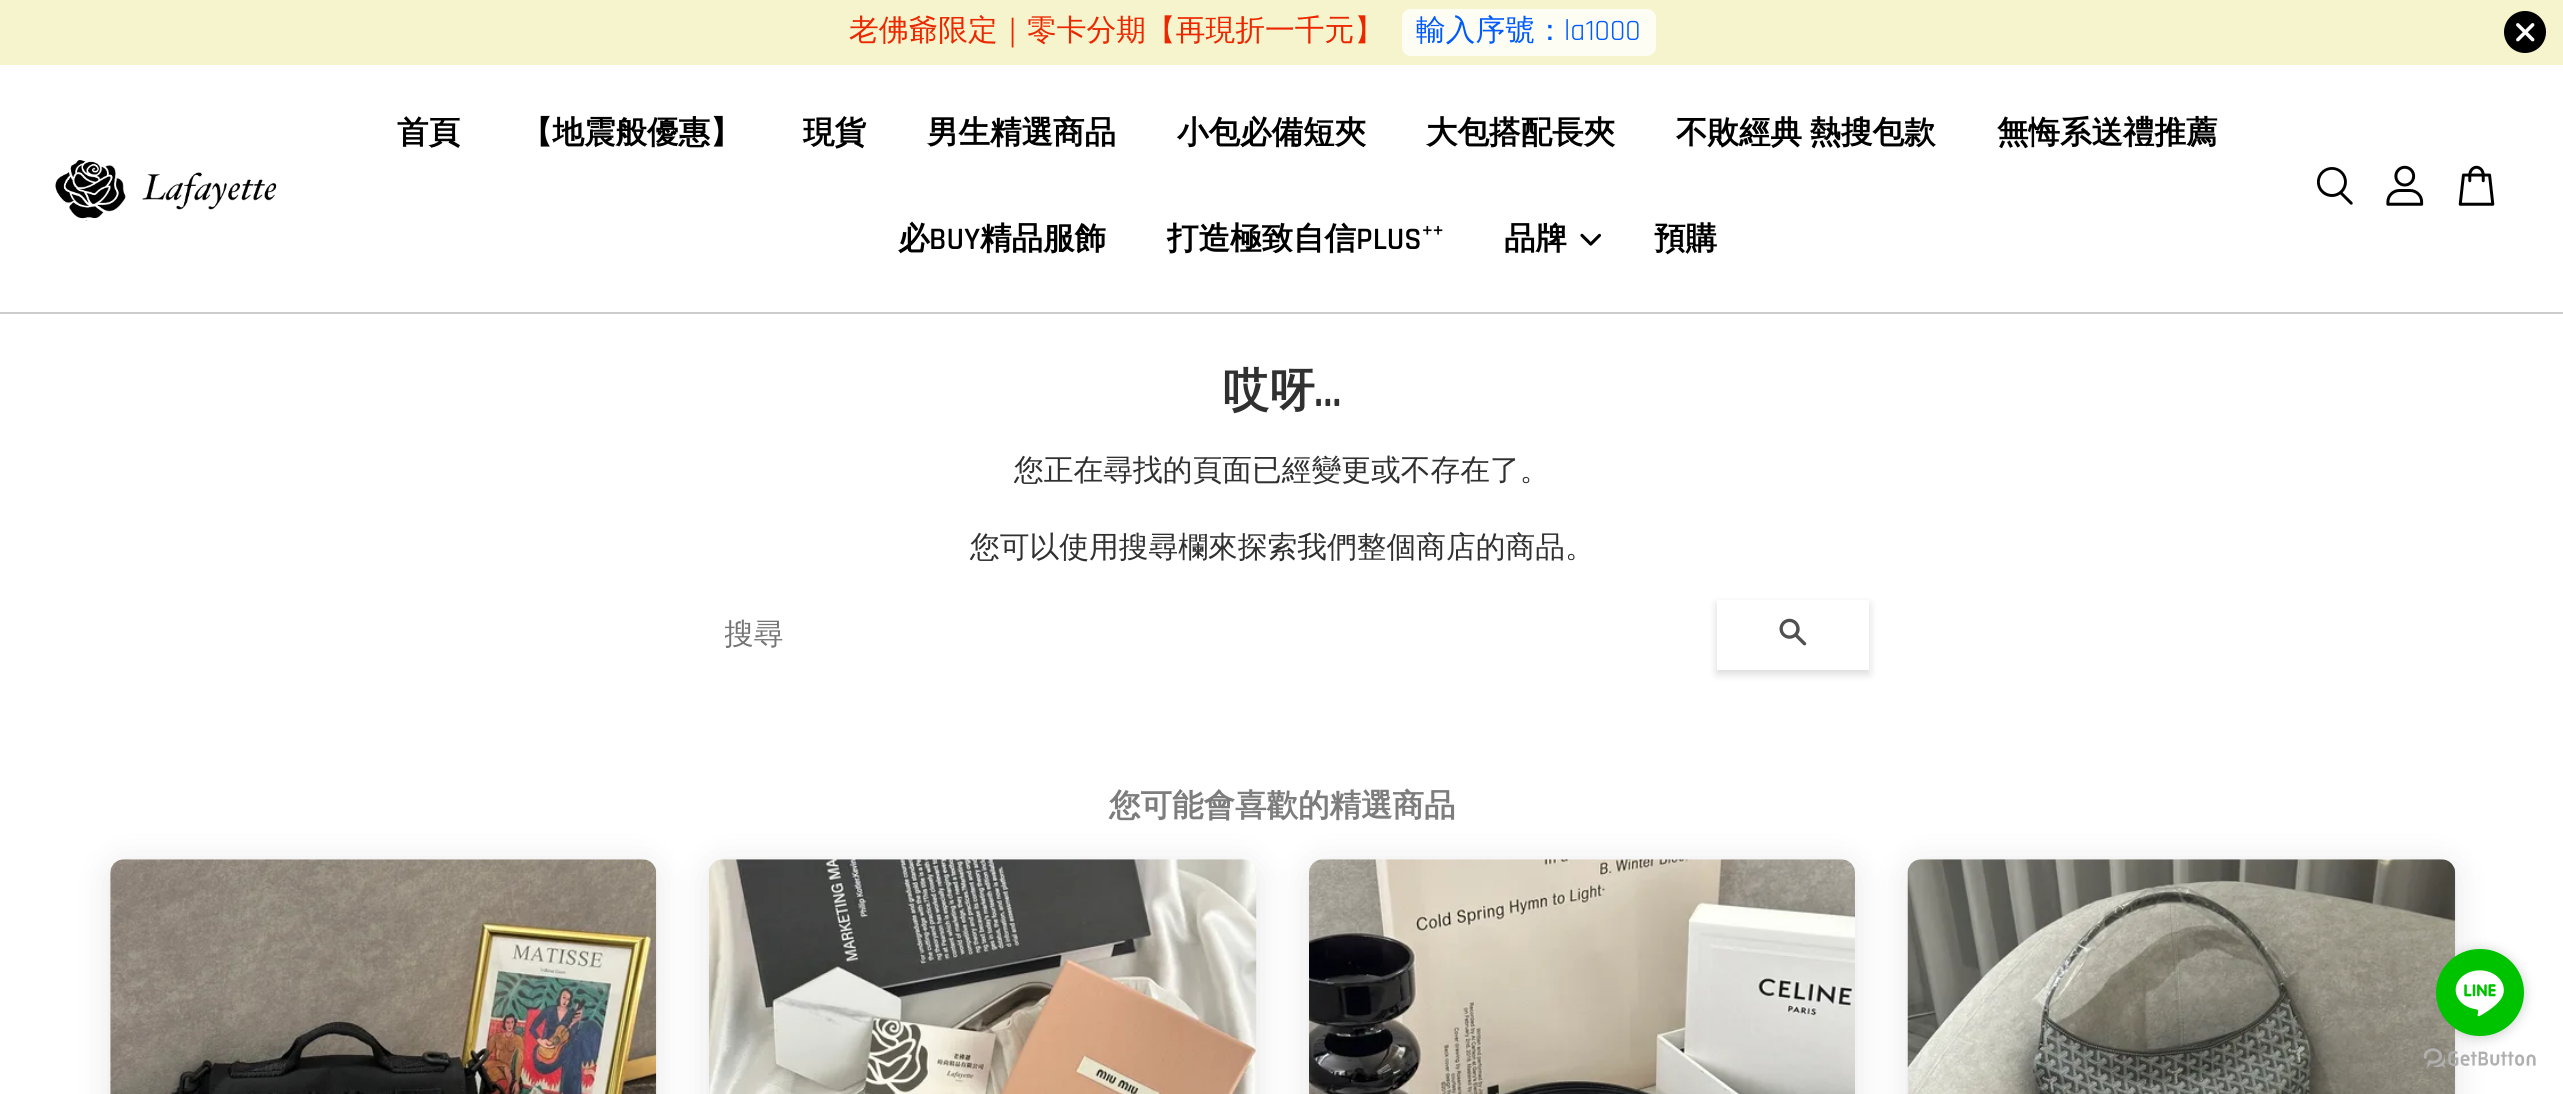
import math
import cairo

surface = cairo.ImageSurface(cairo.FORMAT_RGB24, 2563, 1094)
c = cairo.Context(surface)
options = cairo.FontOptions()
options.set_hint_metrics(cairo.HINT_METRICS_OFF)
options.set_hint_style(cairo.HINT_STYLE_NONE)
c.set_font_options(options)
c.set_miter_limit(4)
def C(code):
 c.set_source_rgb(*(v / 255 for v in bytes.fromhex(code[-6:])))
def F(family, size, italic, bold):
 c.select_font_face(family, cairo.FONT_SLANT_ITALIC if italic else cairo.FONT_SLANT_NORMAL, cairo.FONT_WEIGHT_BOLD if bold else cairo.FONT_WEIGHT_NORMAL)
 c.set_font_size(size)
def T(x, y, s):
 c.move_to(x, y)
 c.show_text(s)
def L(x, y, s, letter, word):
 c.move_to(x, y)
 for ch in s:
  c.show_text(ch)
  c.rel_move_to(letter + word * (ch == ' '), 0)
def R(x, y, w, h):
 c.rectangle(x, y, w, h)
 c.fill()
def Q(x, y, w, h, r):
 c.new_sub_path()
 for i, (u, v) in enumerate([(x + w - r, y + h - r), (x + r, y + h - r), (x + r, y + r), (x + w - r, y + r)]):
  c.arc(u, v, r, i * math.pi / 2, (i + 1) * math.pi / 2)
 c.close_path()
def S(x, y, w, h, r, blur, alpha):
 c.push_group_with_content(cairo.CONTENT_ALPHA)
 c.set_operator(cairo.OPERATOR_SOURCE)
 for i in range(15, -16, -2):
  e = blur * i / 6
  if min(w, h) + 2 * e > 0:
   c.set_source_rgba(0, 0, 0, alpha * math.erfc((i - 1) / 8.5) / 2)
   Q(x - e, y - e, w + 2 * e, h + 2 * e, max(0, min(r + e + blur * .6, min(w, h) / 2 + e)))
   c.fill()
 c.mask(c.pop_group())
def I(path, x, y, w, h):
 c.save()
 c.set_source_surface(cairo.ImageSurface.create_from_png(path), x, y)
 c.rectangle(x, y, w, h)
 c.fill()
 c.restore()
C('ffffff')
c.paint()
C('f5f4cc')
R(0,0,2563,65)
F('WenQuanYi Zen Hei Medium',29.75,0,0)
C('ec2700')
T(849,40,'老佛爺限定｜零卡分期【再現折一千元】')
C('fefdf3')
Q(1402,9,254,47,9)
c.fill()
C('005bff')
T(1416,40,'輸入序號：')
F('Rajdhani',29.75,0,0)
T(1564,40,'la1000')
C('000000')
c.new_path()
c.arc(2525,32,21,0,2 * math.pi)
c.fill()
C('ffffff')
c.new_path()
c.move_to(2534,23.5)
c.curve_to(2534.5,24.5,2534.5,25.5,2534,26)
c.line_to(2519,41)
c.curve_to(2518.5,41.5,2517.5,41.5,2516.5,41)
c.curve_to(2516,40,2516,39,2516.5,38.5)
c.line_to(2531.5,23.5)
c.curve_to(2532,23,2533,23,2534,23.5)
c.close_path()
c.fill()
c.new_path()
c.move_to(2516.5,23.5)
c.curve_to(2517.5,23,2518.5,23,2519,23.5)
c.line_to(2534,38.5)
c.curve_to(2534.5,39,2534.5,40,2534,41)
c.curve_to(2533,41.5,2532,41.5,2531.5,41)
c.line_to(2516.5,26)
c.curve_to(2516,25.5,2516,24.5,2516.5,23.5)
c.close_path()
c.fill()
C('cccccc')
R(0,312,2563,2)
I('1.png',55,160,222,61)
F('WenQuanYi Zen Hei',31.5,0,1)
C('000000')
T(397,143,'首頁')
T(521,143,'【地震般優惠】')
T(803,143,'現貨')
T(927,143,'男生精選商品')
T(1177,143,'小包必備短夾')
T(1426,143,'大包搭配長夾')
L(1676,143,'不敗經典 熱搜包款',0,-2)
T(1997,143,'無悔系送禮推薦')
T(898,249,'必')
F('Rajdhani SemiBold',31.5,0,0)
T(929,249,'BUY')
F('WenQuanYi Zen Hei',31.5,0,1)
T(980,249,'精品服飾')
T(1167,249,'打造極致自信')
F('Rajdhani SemiBold',31.5,0,0)
T(1356,249,'PLUS')
F('Noto Sans',31.5,0,0)
T(1422,249,'⁺⁺')
F('WenQuanYi Zen Hei',31.5,0,1)
T(1504,249,'品牌')
I('2.png',1580,233,21,13)
T(1654,249,'預購')
I('3.png',2316,167,37,38)
I('4.png',2386,165,38,41)
I('5.png',2458,165,37,41)
F('WenQuanYi Zen Hei',46,0,1)
C('303030')
T(1223,406,'哎呀')
F('Rajdhani SemiBold',46,0,0)
T(1314,406,'...')
F('WenQuanYi Zen Hei Medium',29.75,0,0)
T(1014,480,'您正在尋找的頁面已經變更或不存在了。')
T(970,557,'您可以使用搜尋欄來探索我們整個商店的商品。')
c.save()
c.rectangle(725,614,957,41)
c.clip()
C('757575')
T(724,644,'搜尋')
c.restore()
C('000000')
S(1717,604,152,70,0,4.5,.15)
C('ffffff')
R(1717,600,152,70)
I('6.png',1779,618,28,28)
F('WenQuanYi Zen Hei',31.5,0,1)
C('7d7d7d')
T(1109,816,'您可能會喜歡的精選商品')
C('000000')
S(110,865,546,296,14,17.5,.1)
I('7.png',110,859,547,235)
S(709,865,548,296,14,17.5,.1)
I('8.png',708,859,549,235)
S(1309,865,546,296,14,17.5,.1)
I('9.png',1309,859,546,235)
S(1908,865,547,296,14,17.5,.1)
I('10.png',1907,859,549,235)
I('12.png',2424,1048,112,20)
C('888888')
S(2436,950,88,88,44,6,.4)
C('00c300')
Q(2436,949,88,87,43.5)
c.fill()
I('11.png',2455,970,49,47)
surface.write_to_png('o.png')
